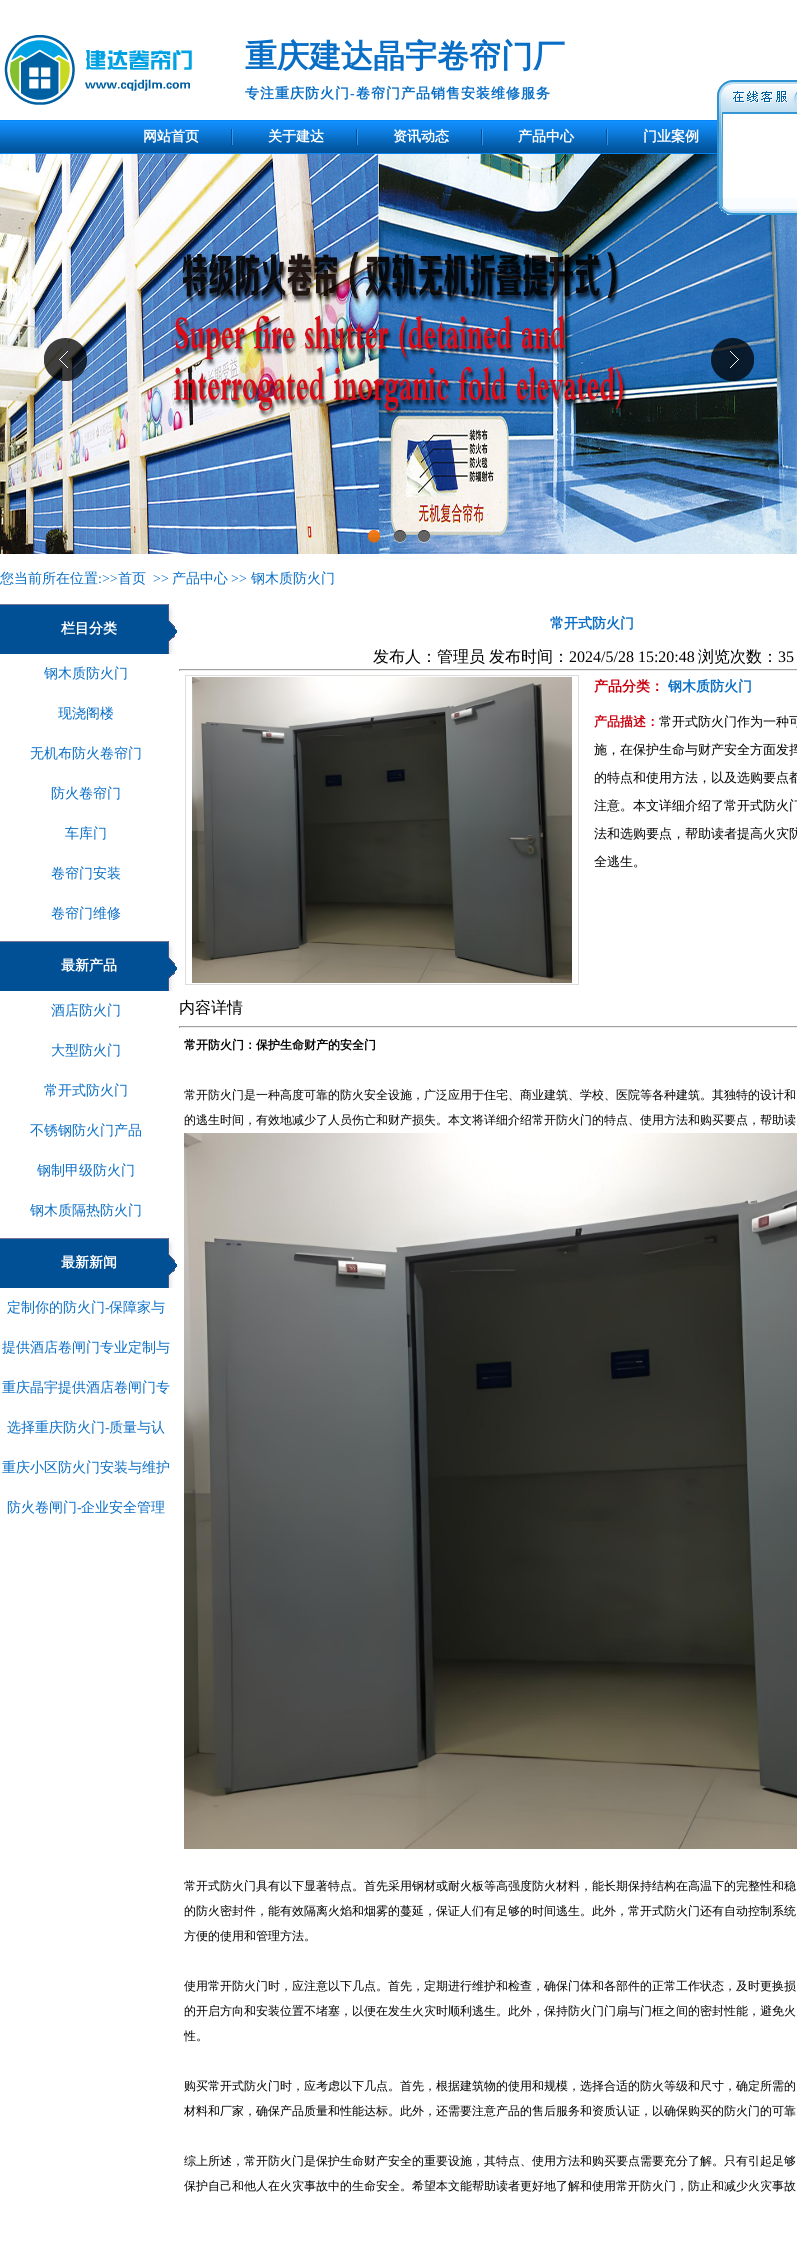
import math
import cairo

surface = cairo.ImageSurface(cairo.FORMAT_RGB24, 797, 2241)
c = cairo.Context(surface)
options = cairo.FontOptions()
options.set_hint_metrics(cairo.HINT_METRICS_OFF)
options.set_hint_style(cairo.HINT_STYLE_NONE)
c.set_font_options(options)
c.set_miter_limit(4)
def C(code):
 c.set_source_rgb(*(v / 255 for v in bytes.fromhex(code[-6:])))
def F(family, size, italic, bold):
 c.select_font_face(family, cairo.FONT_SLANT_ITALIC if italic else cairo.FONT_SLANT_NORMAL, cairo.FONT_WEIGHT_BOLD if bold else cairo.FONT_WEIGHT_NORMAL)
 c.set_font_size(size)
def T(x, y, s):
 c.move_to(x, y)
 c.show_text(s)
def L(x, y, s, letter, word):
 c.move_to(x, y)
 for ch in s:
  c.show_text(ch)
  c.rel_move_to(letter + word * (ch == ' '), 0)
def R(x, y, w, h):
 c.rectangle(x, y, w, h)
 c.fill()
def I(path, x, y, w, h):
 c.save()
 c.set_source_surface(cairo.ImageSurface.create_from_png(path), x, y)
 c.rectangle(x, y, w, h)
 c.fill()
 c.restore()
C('ffffff')
c.paint()
I('1.png',4,35,188,70)
F('WenQuanYi Zen Hei',32,0,1)
C('096ec6')
T(245,67,'重庆建达晶宇卷帘门厂')
F('WenQuanYi Zen Hei',14,0,1)
L(245,98,'专注重庆防火门',1,0)
F('Liberation Serif',14,0,1)
L(350,98,'-',1,0)
F('WenQuanYi Zen Hei',14,0,1)
L(356,98,'卷帘门产品销售安装维修服务',1,0)
I('2.png',0,120,717,34)
I('3.png',231,129,2,16)
C('ffffff')
T(143,141,'网站首页')
I('3.png',356,129,2,16)
T(268,141,'关于建达')
I('3.png',481,129,2,16)
T(393,141,'资讯动态')
I('3.png',606,129,2,16)
T(518,141,'产品中心')
T(643,141,'门业案例')
I('4.png',717,80,80,34)
I('7.png',0,154,797,400)
I('5.png',717,114,6,84)
R(723,154,74,44)
I('6.png',717,198,80,17)
I('8.png',44,338,43,43)
I('9.png',711,338,43,43)
I('10.png',368,530,14,13)
I('11.png',393,530,13,13)
I('12.png',417,530,13,13)
F('WenQuanYi Zen Hei Medium',14,0,0)
C('096ec6')
T(0,583,'您当前所在位置')
F('Liberation Serif',14,0,0)
T(98,583,':>>')
F('WenQuanYi Zen Hei Medium',14,0,0)
T(118,583,'首页')
F('Liberation Serif',14,0,0)
T(153,583,'>>')
F('WenQuanYi Zen Hei Medium',14,0,0)
T(172,583,'产品中心')
F('Liberation Serif',14,0,0)
T(231,583,'>>')
F('WenQuanYi Zen Hei Medium',14,0,0)
T(251,583,'钢木质防火门')
I('13.png',0,604,177,50)
F('WenQuanYi Zen Hei',14,0,1)
C('ffffff')
T(61,633,'栏目分类')
F('WenQuanYi Zen Hei Medium',14,0,0)
C('096ec6')
T(44,678,'钢木质防火门')
T(58,718,'现浇阁楼')
T(30,758,'无机布防火卷帘门')
T(51,798,'防火卷帘门')
T(65,838,'车库门')
T(51,878,'卷帘门安装')
T(51,918,'卷帘门维修')
I('13.png',0,941,177,50)
F('WenQuanYi Zen Hei',14,0,1)
C('ffffff')
T(61,970,'最新产品')
F('WenQuanYi Zen Hei Medium',14,0,0)
C('096ec6')
T(51,1015,'酒店防火门')
T(51,1055,'大型防火门')
T(44,1095,'常开式防火门')
T(30,1135,'不锈钢防火门产品')
T(37,1175,'钢制甲级防火门')
T(30,1215,'钢木质隔热防火门')
I('13.png',0,1238,177,50)
F('WenQuanYi Zen Hei',14,0,1)
C('ffffff')
T(61,1267,'最新新闻')
F('WenQuanYi Zen Hei Medium',14,0,0)
C('096ec6')
T(7,1312,'定制你的防火门')
F('Liberation Serif',14,0,0)
T(105,1312,'-')
F('WenQuanYi Zen Hei Medium',14,0,0)
T(109,1312,'保障家与')
T(2,1352,'提供酒店卷闸门专业定制与')
T(2,1392,'重庆晶宇提供酒店卷闸门专')
T(7,1432,'选择重庆防火门')
F('Liberation Serif',14,0,0)
T(105,1432,'-')
F('WenQuanYi Zen Hei Medium',14,0,0)
T(109,1432,'质量与认')
T(2,1472,'重庆小区防火门安装与维护')
T(7,1512,'防火卷闸门')
F('Liberation Serif',14,0,0)
T(77,1512,'-')
F('WenQuanYi Zen Hei Medium',14,0,0)
T(81,1512,'企业安全管理')
F('WenQuanYi Zen Hei',14,0,1)
T(550,628,'常开式防火门')
F('WenQuanYi Zen Hei Medium',16,0,0)
C('000000')
T(373,662,'发布人：管理员')
T(489,662,'发布时间：')
F('Liberation Serif',16,0,0)
T(569,662,'2024/5/28 15:20:48')
F('WenQuanYi Zen Hei Medium',16,0,0)
T(698,662,'浏览次数：')
F('Liberation Serif',16,0,0)
T(778,662,'35')
C('9f9f9f')
R(179,669,618,1)
C('eeeeee')
R(179,670,618,1)
C('9f9f9f')
R(179,669,1,2)
c.rectangle(185.5,675.5,393,309)
C('dddddd')
c.set_line_width(1)
c.stroke()
I('14.png',192,677,380,306)
F('WenQuanYi Zen Hei',14,0,1)
C('c9000d')
T(594,691,'产品分类：')
C('096ec6')
T(668,691,'钢木质防火门')
F('WenQuanYi Zen Hei',13,0,1)
C('c9000d')
T(594,726,'产品描述：')
F('WenQuanYi Zen Hei Medium',13,0,0)
C('000000')
T(659,726,'常开式防火门作为一种可')
T(594,754,'施，在保护生命与财产安全方面发挥')
T(594,782,'的特点和使用方法，以及选购要点都')
T(594,810,'注意。本文详细介绍了常开式防火门')
T(594,838,'法和选购要点，帮助读者提高火灾防')
T(594,866,'全逃生。')
F('WenQuanYi Zen Hei Medium',16,0,0)
T(179,1013,'内容详情')
C('9f9f9f')
R(179,1026,618,1)
C('eeeeee')
R(179,1027,618,1)
C('9f9f9f')
R(179,1026,1,2)
F('WenQuanYi Zen Hei',12,0,1)
C('000000')
T(184,1049,'常开防火门：保护生命财产的安全门')
F('WenQuanYi Zen Hei Medium',12,0,0)
T(184,1099,'常开防火门是一种高度可靠的防火安全设施，广泛应用于住宅、商业建筑、学校、医院等各种建筑。其独特的设计和')
T(184,1124,'的逃生时间，有效地减少了人员伤亡和财产损失。本文将详细介绍常开防火门的特点、使用方法和购买要点，帮助读')
I('15.png',184,1133,613,716)
T(184,1890,'常开式防火门具有以下显著特点。首先采用钢材或耐火板等高强度防火材料，能长期保持结构在高温下的完整性和稳')
T(184,1915,'的防火密封件，能有效隔离火焰和烟雾的蔓延，保证人们有足够的时间逃生。此外，常开式防火门还有自动控制系统')
T(184,1940,'方便的使用和管理方法。')
T(184,1990,'使用常开防火门时，应注意以下几点。首先，定期进行维护和检查，确保门体和各部件的正常工作状态，及时更换损')
T(184,2015,'的开启方向和安装位置不堵塞，以便在发生火灾时顺利逃生。此外，保持防火门门扇与门框之间的密封性能，避免火')
T(184,2040,'性。')
T(184,2090,'购买常开式防火门时，应考虑以下几点。首先，根据建筑物的使用和规模，选择合适的防火等级和尺寸，确定所需的')
T(184,2115,'材料和厂家，确保产品质量和性能达标。此外，还需要注意产品的售后服务和资质认证，以确保购买的防火门的可靠')
T(184,2165,'综上所述，常开防火门是保护生命财产安全的重要设施，其特点、使用方法和购买要点需要充分了解。只有引起足够')
T(184,2190,'保护自己和他人在火灾事故中的生命安全。希望本文能帮助读者更好地了解和使用常开防火门，防止和减少火灾事故')
surface.write_to_png('o.png')
